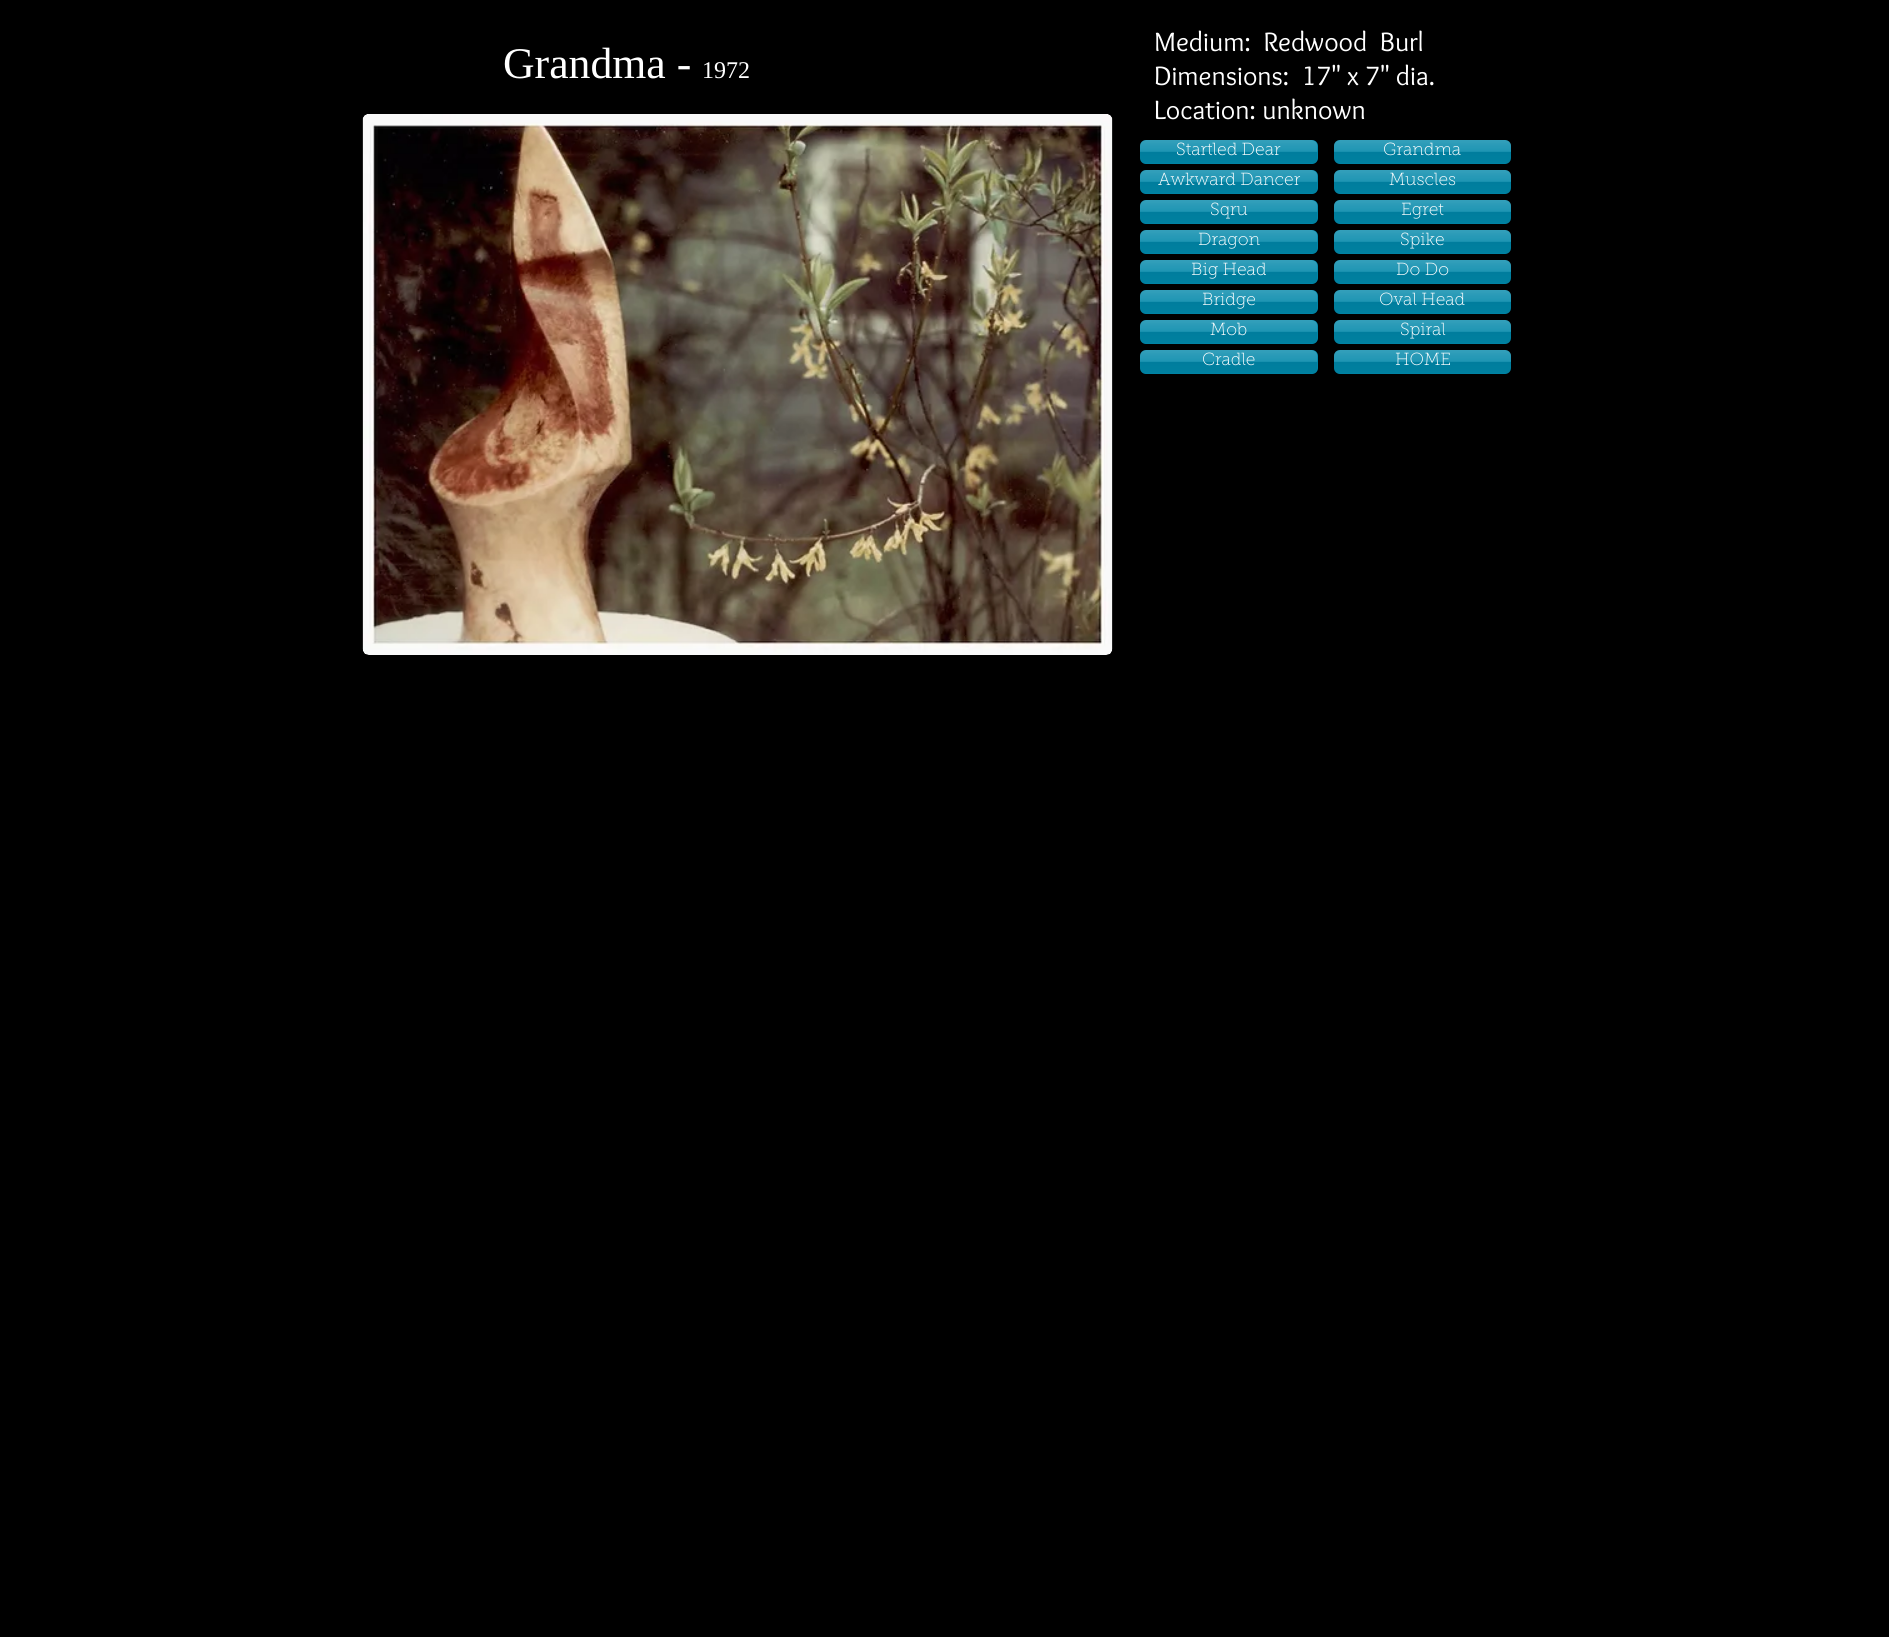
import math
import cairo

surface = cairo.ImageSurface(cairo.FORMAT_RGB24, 1889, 1637)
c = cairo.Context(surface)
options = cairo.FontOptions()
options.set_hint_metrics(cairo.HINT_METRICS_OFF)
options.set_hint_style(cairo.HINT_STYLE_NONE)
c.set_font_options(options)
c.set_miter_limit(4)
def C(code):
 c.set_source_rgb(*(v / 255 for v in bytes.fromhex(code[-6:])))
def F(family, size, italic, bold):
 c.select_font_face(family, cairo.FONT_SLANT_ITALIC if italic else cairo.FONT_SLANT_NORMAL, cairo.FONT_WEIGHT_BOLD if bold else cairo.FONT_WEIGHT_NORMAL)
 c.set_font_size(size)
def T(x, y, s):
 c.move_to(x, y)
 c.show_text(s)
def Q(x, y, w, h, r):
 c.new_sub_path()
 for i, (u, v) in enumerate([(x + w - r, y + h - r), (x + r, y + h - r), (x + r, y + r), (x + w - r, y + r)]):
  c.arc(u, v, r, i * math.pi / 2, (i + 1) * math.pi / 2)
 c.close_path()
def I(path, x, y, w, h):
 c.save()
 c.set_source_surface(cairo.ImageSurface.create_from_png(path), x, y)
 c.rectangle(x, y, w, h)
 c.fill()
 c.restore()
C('000000')
c.paint()
F('Liberation Serif',43.75,0,0)
C('ffffff')
T(503,78,'Grandma -')
F('Liberation Serif',24,0,0)
T(702,78,'1972')
F('Overlock',27.5,0,0)
T(1154,51,'Medium:  Redwood  Burl')
T(1154,85,'Dimensions:  17" x 7" dia.')
T(1154,119,'Location: unknown')
I('1.png',362,114,751,541)
C('0087a9')
Q(1140,140,178,24,6)
c.fill()
I('2.png',1140,140,178,24)
F('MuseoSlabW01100 Thin',17.5,0,0)
C('ffffff')
T(1176,155,'Startled Dear')
C('0087a9')
Q(1334,140,177,24,6)
c.fill()
I('3.png',1334,140,177,24)
C('ffffff')
T(1383,155,'Grandma')
C('0087a9')
Q(1140,170,178,24,6)
c.fill()
I('2.png',1140,170,178,24)
C('ffffff')
T(1158,185,'Awkward Dancer')
C('0087a9')
Q(1334,170,177,24,6)
c.fill()
I('3.png',1334,170,177,24)
C('ffffff')
T(1389,185,'Muscles')
C('0087a9')
Q(1140,200,178,24,6)
c.fill()
I('2.png',1140,200,178,24)
C('ffffff')
T(1210,215,'Sqru')
C('0087a9')
Q(1334,200,177,24,6)
c.fill()
I('3.png',1334,200,177,24)
C('ffffff')
T(1401,215,'Egret')
C('0087a9')
Q(1140,230,178,24,6)
c.fill()
I('2.png',1140,230,178,24)
C('ffffff')
T(1198,245,'Dragon')
C('0087a9')
Q(1334,230,177,24,6)
c.fill()
I('3.png',1334,230,177,24)
C('ffffff')
T(1400,245,'Spike')
C('0087a9')
Q(1140,260,178,24,6)
c.fill()
I('2.png',1140,260,178,24)
C('ffffff')
T(1191,275,'Big Head')
C('0087a9')
Q(1334,260,177,24,6)
c.fill()
I('3.png',1334,260,177,24)
C('ffffff')
T(1396,275,'Do Do')
C('0087a9')
Q(1140,290,178,24,6)
c.fill()
I('2.png',1140,290,178,24)
C('ffffff')
T(1202,305,'Bridge')
C('0087a9')
Q(1334,290,177,24,6)
c.fill()
I('3.png',1334,290,177,24)
C('ffffff')
T(1379,305,'Oval Head')
C('0087a9')
Q(1140,320,178,24,6)
c.fill()
I('2.png',1140,320,178,24)
C('ffffff')
T(1210,335,'Mob')
C('0087a9')
Q(1334,320,177,24,6)
c.fill()
I('3.png',1334,320,177,24)
C('ffffff')
T(1400,335,'Spiral')
C('0087a9')
Q(1140,350,178,24,6)
c.fill()
I('2.png',1140,350,178,24)
C('ffffff')
T(1202,365,'Cradle')
C('0087a9')
Q(1334,350,177,24,6)
c.fill()
I('3.png',1334,350,177,24)
C('ffffff')
T(1395,365,'HOME')
surface.write_to_png('o.png')
